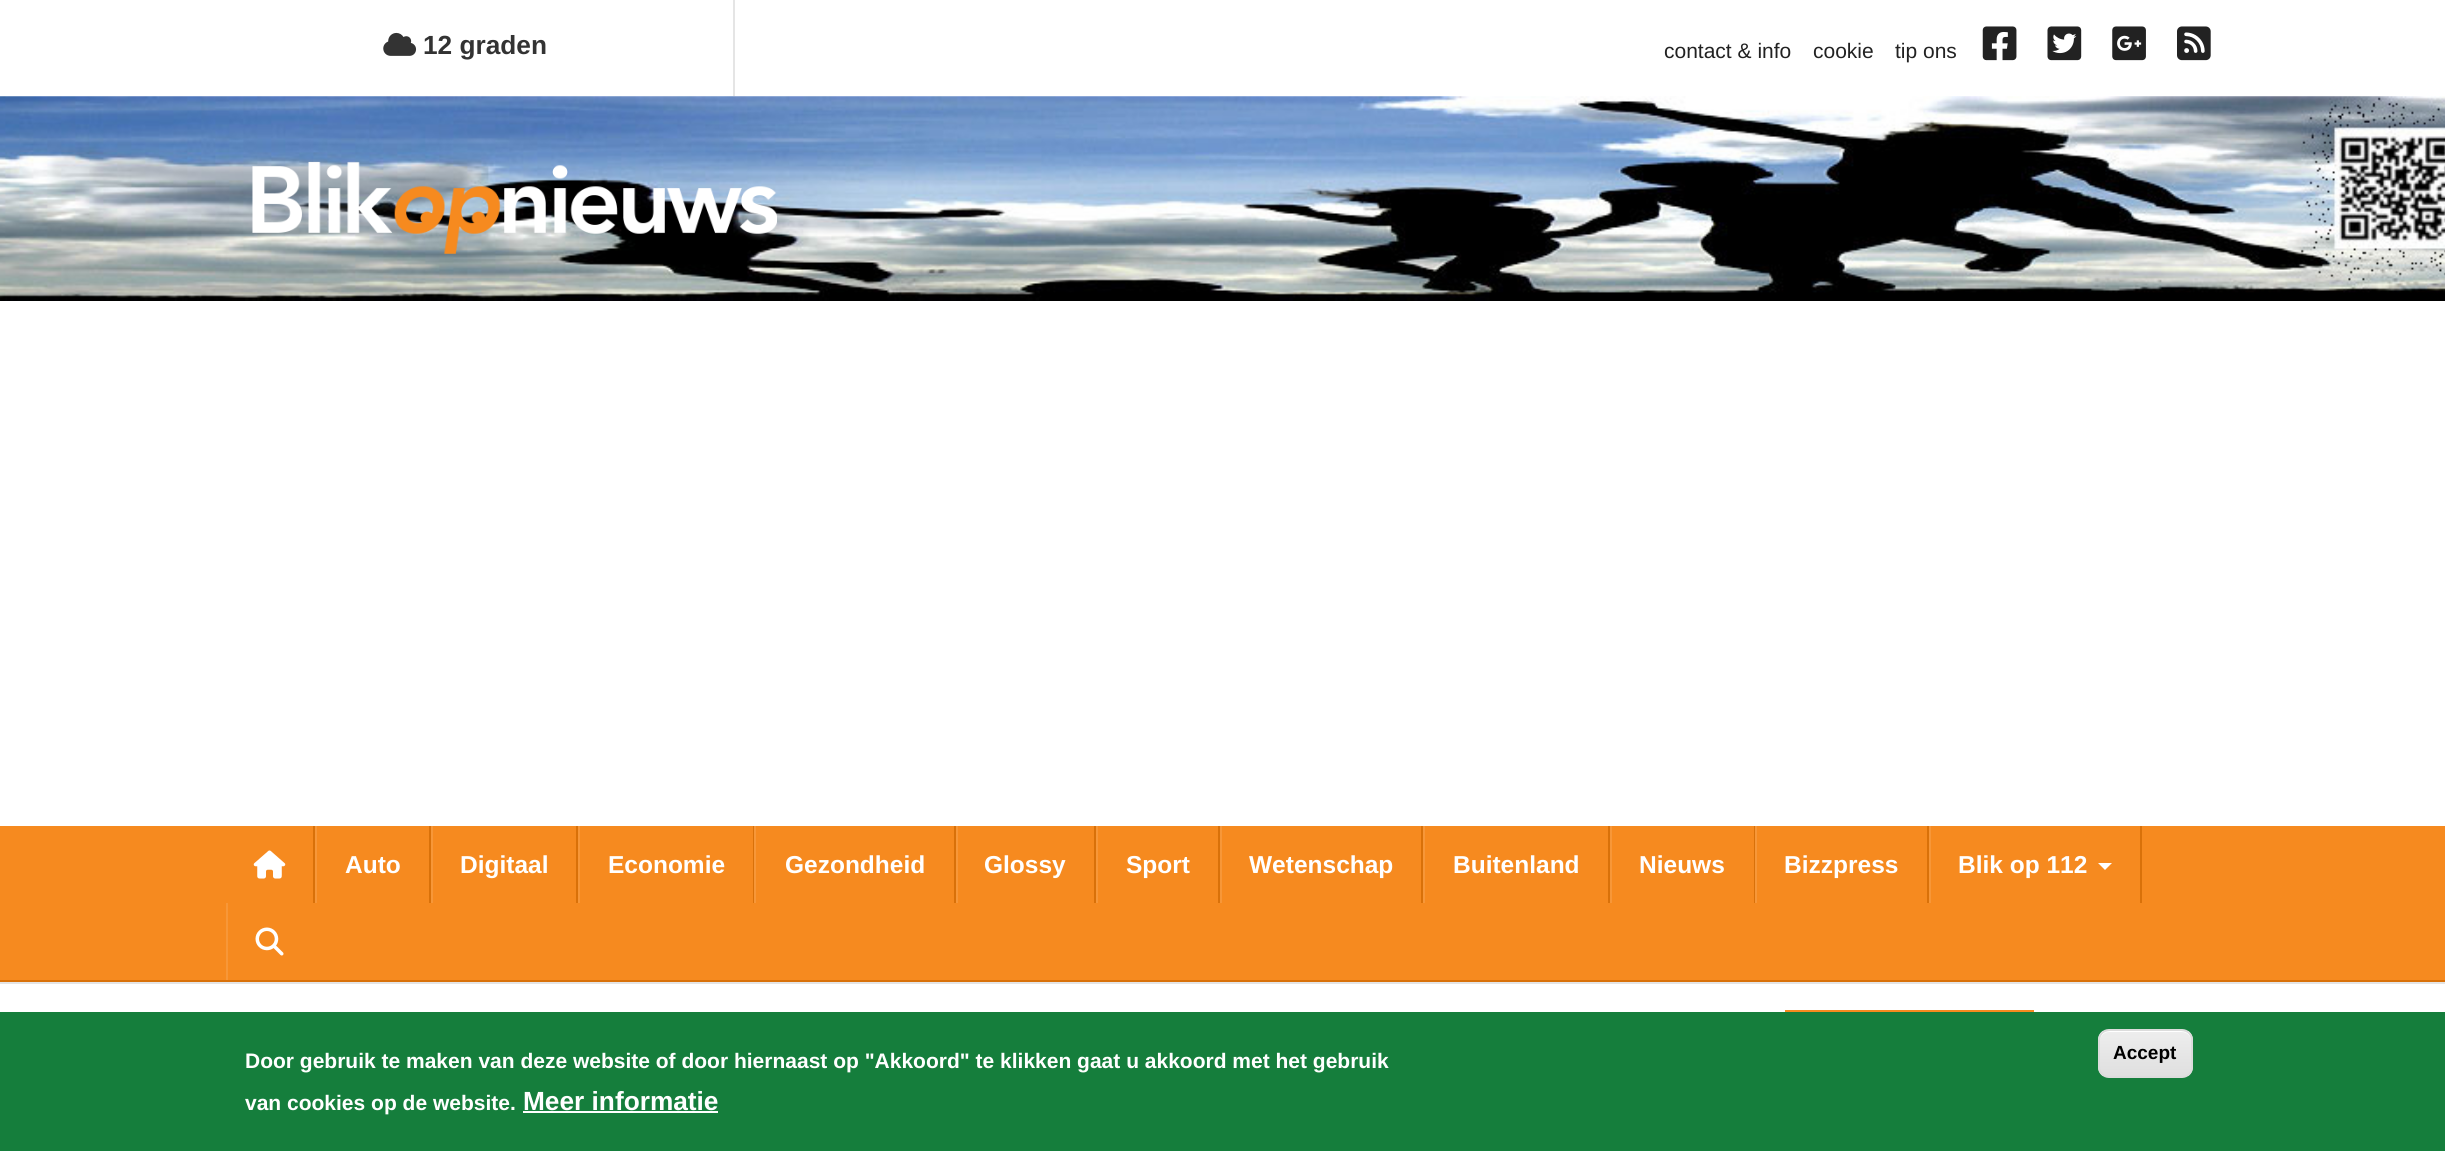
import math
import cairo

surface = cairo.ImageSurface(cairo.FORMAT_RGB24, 2445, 1151)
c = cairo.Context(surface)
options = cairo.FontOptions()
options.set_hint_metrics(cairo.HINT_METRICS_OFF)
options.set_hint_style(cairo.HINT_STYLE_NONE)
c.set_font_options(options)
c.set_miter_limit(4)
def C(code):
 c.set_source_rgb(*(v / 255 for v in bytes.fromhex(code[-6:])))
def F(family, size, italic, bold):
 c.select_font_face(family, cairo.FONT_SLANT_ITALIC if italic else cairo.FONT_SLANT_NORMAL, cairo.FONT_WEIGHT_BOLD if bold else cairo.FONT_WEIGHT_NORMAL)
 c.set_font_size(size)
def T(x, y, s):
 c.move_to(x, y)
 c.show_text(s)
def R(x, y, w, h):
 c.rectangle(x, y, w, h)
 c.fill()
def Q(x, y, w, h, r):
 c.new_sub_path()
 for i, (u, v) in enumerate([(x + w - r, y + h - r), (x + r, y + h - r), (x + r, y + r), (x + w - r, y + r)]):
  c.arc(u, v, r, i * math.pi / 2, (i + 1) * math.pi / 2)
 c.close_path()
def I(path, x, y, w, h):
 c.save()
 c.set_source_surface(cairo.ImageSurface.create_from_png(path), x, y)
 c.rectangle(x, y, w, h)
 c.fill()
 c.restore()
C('ffffff')
c.paint()
C('e5e5e5')
R(733,0,2,96)
I('1.png',383,32,34,24)
F('Liberation Sans',26.25,0,1)
C('333333')
T(423,54,'12 graden')
F('Liberation Sans',21,0,0)
C('222222')
T(1664,58,'contact & info')
T(1813,58,'cookie')
T(1895,58,'tip ons')
I('2.png',1982,26,35,35)
I('3.png',2047,26,35,35)
I('4.png',2112,26,34,35)
I('5.png',2177,26,34,35)
I('6.png',0,96,2445,205)
I('7.png',252,161,525,93)
C('f68a1f')
R(0,826,2445,154)
C('d97109')
R(0,980,2445,2)
R(313,826,2,77)
I('8.png',253,850,33,29)
R(429,826,2,77)
C('f79738')
R(315,826,2,77)
F('Liberation Sans',24.5,0,1)
C('ffffff')
T(345,873,'Auto')
C('d97109')
R(576,826,2,77)
C('f79738')
R(431,826,2,77)
C('ffffff')
T(460,873,'Digitaal')
C('d97109')
R(753,826,1,77)
C('f79738')
R(578,826,2,77)
C('ffffff')
T(608,873,'Economie')
C('d97109')
R(954,826,2,77)
C('f79738')
R(754,826,2,77)
C('ffffff')
T(785,873,'Gezondheid')
C('d97109')
R(1094,826,2,77)
C('f79738')
R(956,826,2,77)
C('ffffff')
T(984,873,'Glossy')
C('d97109')
R(1218,826,2,77)
C('f79738')
R(1096,826,2,77)
C('ffffff')
T(1126,873,'Sport')
C('d97109')
R(1421,826,2,77)
C('f79738')
R(1220,826,2,77)
C('ffffff')
T(1249,873,'Wetenschap')
C('d97109')
R(1608,826,2,77)
C('f79738')
R(1423,826,2,77)
C('ffffff')
T(1453,873,'Buitenland')
C('d97109')
R(1754,826,1,77)
C('f79738')
R(1610,826,2,77)
C('ffffff')
T(1639,873,'Nieuws')
C('d97109')
R(1927,826,2,77)
C('f79738')
R(1755,826,2,77)
C('ffffff')
T(1784,873,'Bizzpress')
C('d97109')
R(2140,826,2,77)
C('f79738')
R(1929,826,2,77)
C('ffffff')
T(1958,873,'Blik op 112')
c.new_path()
c.move_to(2098,863)
c.line_to(2112,863)
c.line_to(2105,870)
c.close_path()
c.fill()
C('f79738')
R(226,903,2,77)
I('9.png',255,927,29,29)
C('e4e4e4')
R(0,982,2445,2)
C('f68a1f')
R(1785,1010,249,2)
C('157e3c')
R(0,1012,2445,139)
F('Liberation Sans',21,0,1)
C('ffffff')
T(245,1068,'Door gebruik te maken van deze website of door hiernaast op "Akkoord" te klikken gaat u akkoord met het gebruik')
T(245,1110,'van cookies op de website.')
F('Liberation Sans',26.25,0,1)
T(523,1110,'Meer informatie')
R(523,1111,195,2)
c.save()
Q(2098,1029,95,49,11)
c.clip()
gradient = cairo.LinearGradient(2146,1031,2146,1076)
gradient.add_color_stop_rgba(.05,0.929,0.929,0.929,1)
gradient.add_color_stop_rgba(1,0.875,0.875,0.875,1)
c.set_source(gradient)
R(2098,1031,95,45)
c.restore()
c.new_path()
c.move_to(2109,1032)
c.line_to(2182,1032)
c.curve_to(2187,1032,2191,1036,2191,1041)
c.curve_to(2191,1029,2179,1031,2170,1031)
c.line_to(2121,1031)
c.curve_to(2112,1031,2100,1029,2100,1041)
c.curve_to(2100,1036,2104,1032,2109,1032)
c.close_path()
c.fill()
Q(2099,1030,93,47,10)
C('dcdcdc')
c.stroke()
F('Liberation Sans',19,0,1)
C('000000')
T(2113,1059,'Accept')
surface.write_to_png('o.png')
